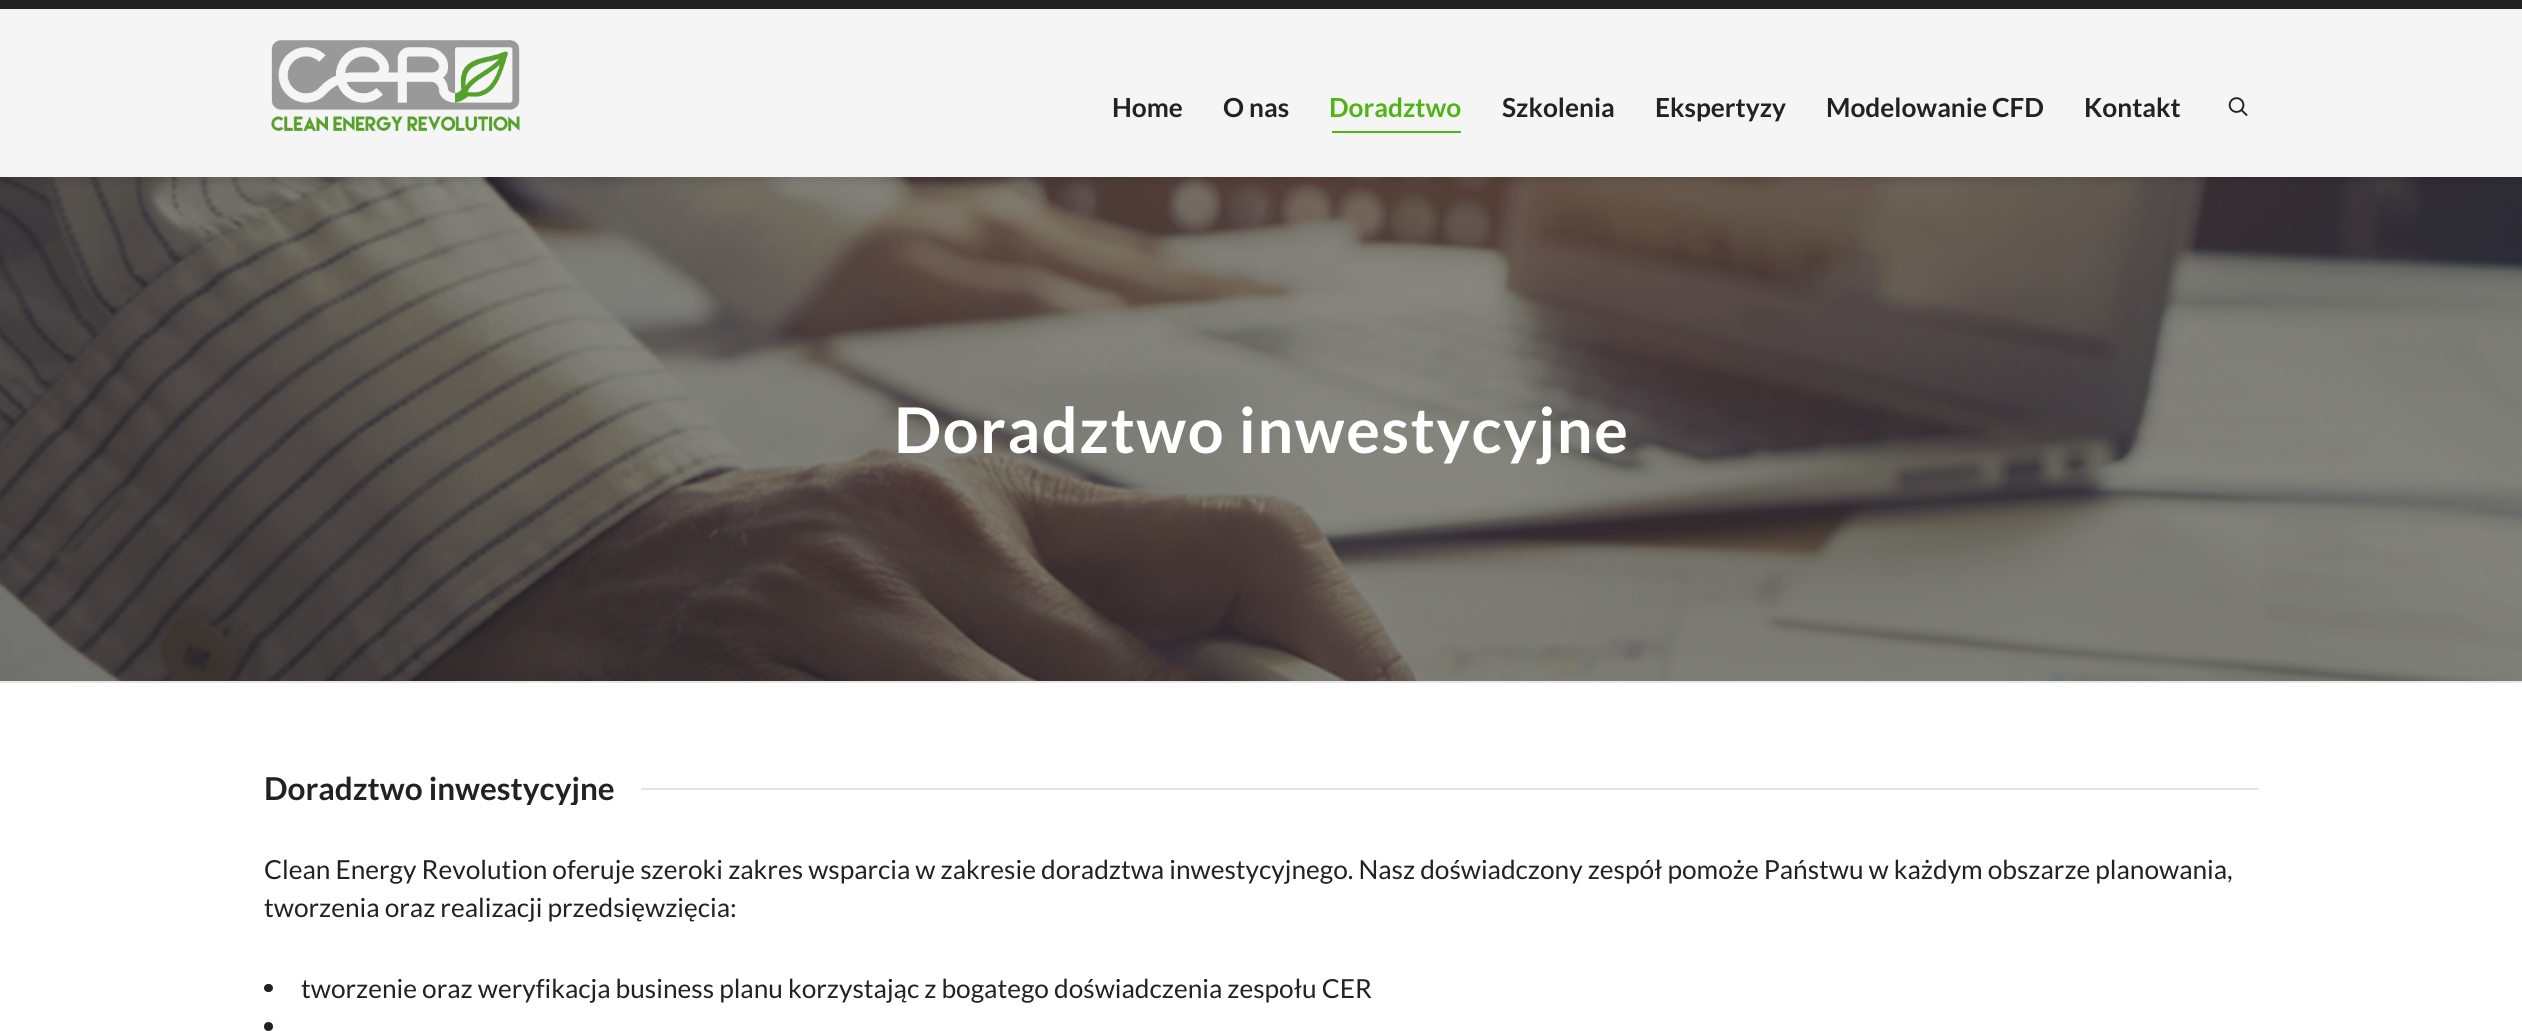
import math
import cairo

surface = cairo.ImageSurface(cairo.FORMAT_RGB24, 2522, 1031)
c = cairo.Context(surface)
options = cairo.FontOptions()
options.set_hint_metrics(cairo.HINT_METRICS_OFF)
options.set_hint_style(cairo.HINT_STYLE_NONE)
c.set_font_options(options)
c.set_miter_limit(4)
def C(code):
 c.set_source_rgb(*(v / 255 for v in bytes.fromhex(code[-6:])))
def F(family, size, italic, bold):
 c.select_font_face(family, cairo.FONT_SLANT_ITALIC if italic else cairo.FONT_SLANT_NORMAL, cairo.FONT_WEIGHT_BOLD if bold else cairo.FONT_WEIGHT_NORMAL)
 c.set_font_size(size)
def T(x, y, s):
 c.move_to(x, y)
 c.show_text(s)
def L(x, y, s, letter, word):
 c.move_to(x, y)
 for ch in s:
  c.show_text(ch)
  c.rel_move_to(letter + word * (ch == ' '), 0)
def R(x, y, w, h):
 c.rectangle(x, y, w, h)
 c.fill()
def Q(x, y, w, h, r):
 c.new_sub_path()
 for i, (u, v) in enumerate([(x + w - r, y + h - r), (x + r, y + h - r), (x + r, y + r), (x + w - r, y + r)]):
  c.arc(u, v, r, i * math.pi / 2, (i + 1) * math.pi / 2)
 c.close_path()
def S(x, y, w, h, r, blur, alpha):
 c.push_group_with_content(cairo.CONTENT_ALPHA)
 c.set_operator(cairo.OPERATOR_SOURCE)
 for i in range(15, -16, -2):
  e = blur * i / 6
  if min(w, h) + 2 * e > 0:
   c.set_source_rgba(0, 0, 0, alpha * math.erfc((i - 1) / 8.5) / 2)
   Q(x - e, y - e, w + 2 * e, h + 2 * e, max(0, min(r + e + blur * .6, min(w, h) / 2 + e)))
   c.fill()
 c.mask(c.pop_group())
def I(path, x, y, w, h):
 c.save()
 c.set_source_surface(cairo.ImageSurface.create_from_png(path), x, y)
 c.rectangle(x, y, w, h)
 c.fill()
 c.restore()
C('222222')
c.paint()
C('ffffff')
R(0,177,2522,854)
I('3.png',0,177,2522,504)
C('000000')
S(0,14,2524,168,0,4.5,.1)
C('f5f5f5')
R(0,9,2522,168)
I('1.png',271,40,249,91)
F('Lato',26.25,0,1)
C('222222')
T(1112,117,'Home')
T(1223,117,'O nas')
C('50b414')
T(1329,117,'Doradztwo')
R(1332,131,129,2)
C('222222')
T(1502,117,'Szkolenia')
T(1655,117,'Ekspertyzy')
T(1826,117,'Modelowanie CFD')
T(2084,117,'Kontakt')
I('2.png',2228,97,20,20)
C('e7e7e7')
R(0,681,2522,2)
F('Lato',63,0,1)
C('ffffff')
L(894,453,'Doradztwo inwestycyjne',1.55,0)
c.save()
c.rectangle(264,770,1995,35)
c.clip()
F('Lato',31.5,0,1)
C('222222')
T(264,800,'Doradztwo inwestycyjne')
c.restore()
C('e4e4e4')
R(641,788,1618,2)
F('Lato',26.25,0,0)
C('222222')
T(264,879,'Clean Energy Revolution oferuje szeroki zakres wsparcia w zakresie doradztwa inwestycyjnego. Nasz doświadczony zespół pomoże Państwu w każdym obszarze planowania,')
T(264,917,'tworzenia oraz realizacji przedsięwzięcia:')
Q(264,984,9,8,4)
c.fill()
T(301,998,'tworzenie oraz weryfikacja business planu korzystając z bogatego doświadczenia zespołu CER')
c.new_path()
c.arc(268.5,1026.5,4.5,0,2 * math.pi)
c.fill()
surface.write_to_png('o.png')
